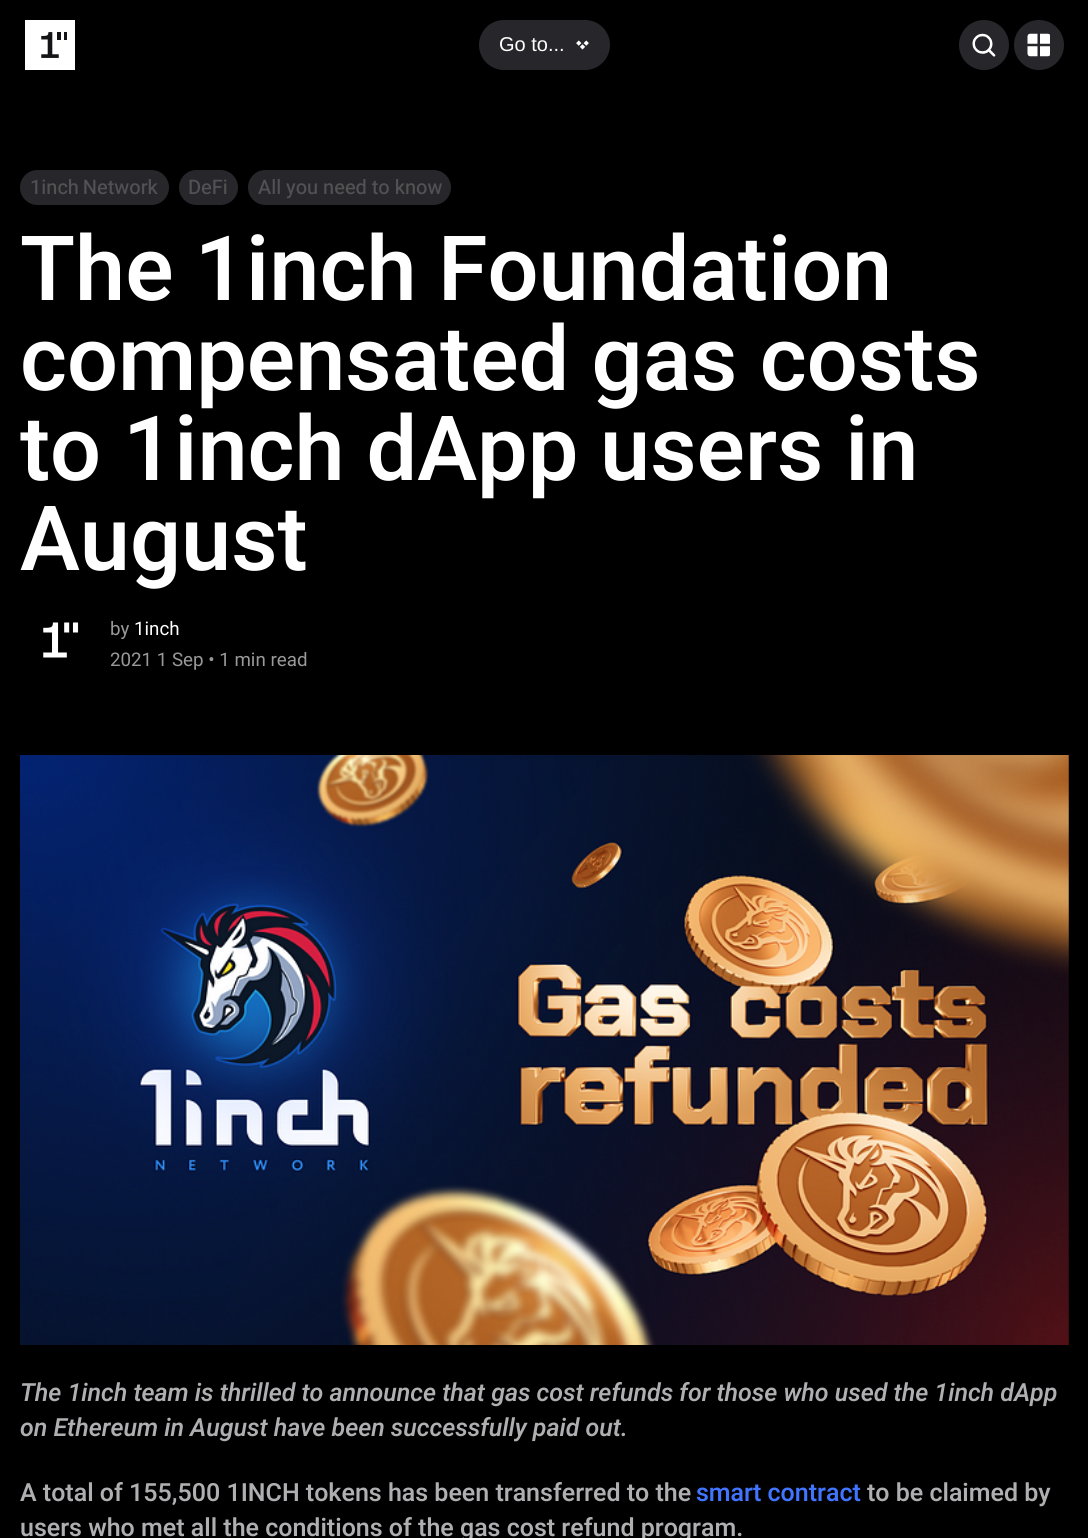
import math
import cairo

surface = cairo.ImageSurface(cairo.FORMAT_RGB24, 1088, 1538)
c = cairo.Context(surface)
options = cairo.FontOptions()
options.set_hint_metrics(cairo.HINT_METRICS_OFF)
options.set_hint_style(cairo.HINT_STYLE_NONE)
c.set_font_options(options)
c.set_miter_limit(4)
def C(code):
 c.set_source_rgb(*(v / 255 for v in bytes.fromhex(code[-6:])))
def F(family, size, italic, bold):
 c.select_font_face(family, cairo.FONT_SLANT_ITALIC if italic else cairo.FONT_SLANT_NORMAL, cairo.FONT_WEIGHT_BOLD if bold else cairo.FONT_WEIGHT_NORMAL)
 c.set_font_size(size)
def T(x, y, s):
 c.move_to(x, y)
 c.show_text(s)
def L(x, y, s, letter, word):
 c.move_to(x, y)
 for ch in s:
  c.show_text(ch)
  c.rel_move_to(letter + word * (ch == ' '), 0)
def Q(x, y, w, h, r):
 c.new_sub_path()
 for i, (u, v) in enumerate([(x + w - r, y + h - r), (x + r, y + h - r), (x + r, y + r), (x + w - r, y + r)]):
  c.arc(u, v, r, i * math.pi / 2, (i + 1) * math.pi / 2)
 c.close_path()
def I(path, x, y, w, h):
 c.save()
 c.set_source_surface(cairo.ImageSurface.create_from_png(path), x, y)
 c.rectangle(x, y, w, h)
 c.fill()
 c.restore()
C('000000')
c.paint()
I('1.png',25,20,50,50)
C('27272b')
Q(479,20,131,50,25)
c.fill()
F('Liberation Sans',20,0,0)
C('ffffff')
T(499,51,'Go to...')
I('2.png',576,40,13,10)
C('27272b')
c.arc(984,45,25,0,2 * math.pi)
c.fill()
I('3.png',972,33,24,24)
c.arc(1039,45,25,0,2 * math.pi)
c.fill()
I('4.png',1027,33,23,24)
Q(20,170,149,35,17.5)
c.fill()
F('Roboto',20,0,0)
C('525255')
L(30,194,'1inch Network',0,-1)
C('27272b')
Q(179,170,59,35,17.5)
c.fill()
C('525255')
T(188,194,'DeFi')
C('27272b')
Q(248,170,203,35,17.5)
c.fill()
C('525255')
T(258,194,'All you need to know')
F('Roboto Medium',90,0,0)
C('ffffff')
L(20,300,'The 1inch Foundation',0,-1)
T(20,390,'compensated gas costs')
L(20,480,'to 1inch dApp users in',0,-.5)
T(20,570,'August')
I('5.png',43,622,36,36)
F('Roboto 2',18.75,0,0)
C('999999')
T(110,635,'by')
C('ffffff')
T(134,635,'1inch')
C('999999')
T(110,666,'2021 1 Sep • 1 min read')
I('6.png',20,755,1049,590)
F('Roboto Medium',25,1,0)
C('afafb2')
T(20,1401,'The 1inch team is thrilled to announce that gas cost refunds for those who used the 1inch dApp')
T(20,1436,'on Ethereum in August have been successfully paid out.')
F('Roboto Medium',25,0,0)
T(20,1501,'A total of 155,500 1INCH tokens has been transferred to the')
C('4175ff')
T(696,1501,'smart contract')
C('afafb2')
T(867,1501,'to be claimed by')
T(20,1536,'users who met all the conditions of the gas cost refund program.')
surface.write_to_png('o.png')
